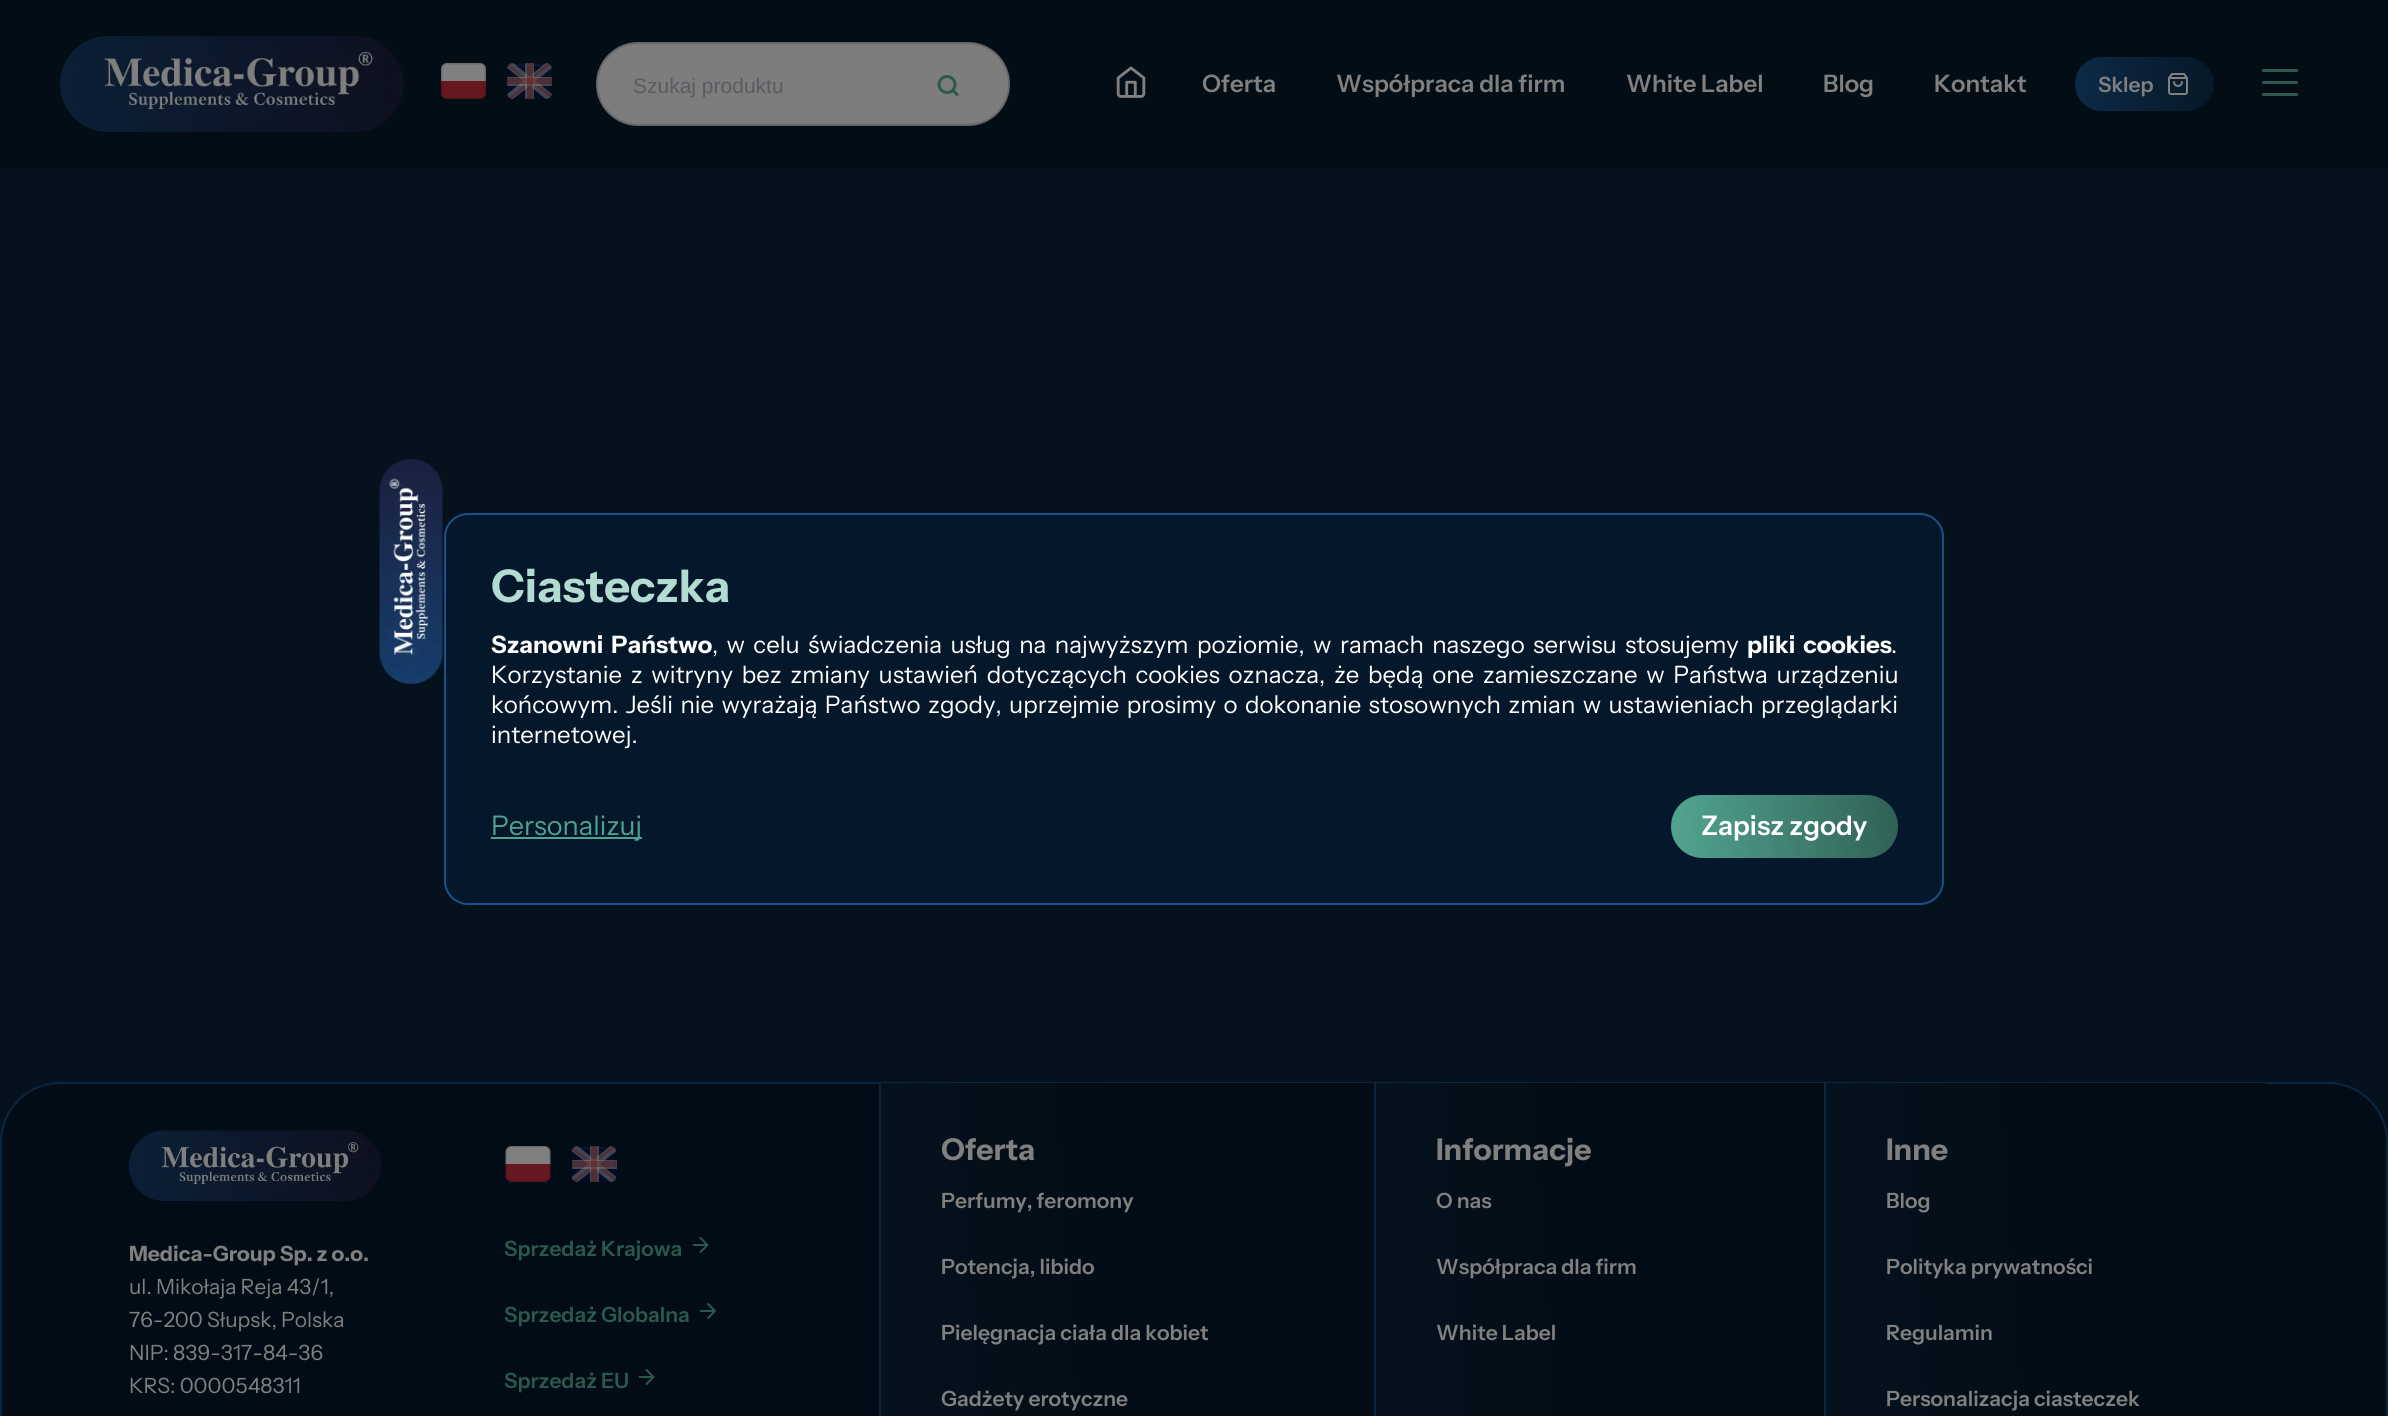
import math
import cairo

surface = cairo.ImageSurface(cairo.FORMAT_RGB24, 2388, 1416)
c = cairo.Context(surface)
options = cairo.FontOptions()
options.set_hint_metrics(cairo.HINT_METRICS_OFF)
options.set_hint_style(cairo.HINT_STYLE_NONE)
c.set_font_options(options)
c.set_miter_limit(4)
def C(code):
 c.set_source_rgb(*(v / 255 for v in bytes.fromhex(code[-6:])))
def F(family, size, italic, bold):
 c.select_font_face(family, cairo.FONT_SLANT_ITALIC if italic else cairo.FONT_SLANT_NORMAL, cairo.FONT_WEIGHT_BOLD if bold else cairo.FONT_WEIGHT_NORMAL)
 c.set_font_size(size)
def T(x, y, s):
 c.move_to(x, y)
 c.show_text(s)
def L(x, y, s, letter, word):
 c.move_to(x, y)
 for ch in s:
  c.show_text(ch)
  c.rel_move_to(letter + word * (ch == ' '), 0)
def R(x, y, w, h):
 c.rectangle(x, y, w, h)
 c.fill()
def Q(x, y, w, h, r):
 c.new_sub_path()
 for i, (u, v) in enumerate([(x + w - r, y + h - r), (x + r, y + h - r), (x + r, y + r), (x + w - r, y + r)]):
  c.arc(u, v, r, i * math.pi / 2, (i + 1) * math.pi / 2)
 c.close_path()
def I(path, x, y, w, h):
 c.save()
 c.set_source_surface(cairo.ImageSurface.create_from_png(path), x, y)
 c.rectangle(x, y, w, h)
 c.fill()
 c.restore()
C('05111d')
c.paint()
I('1.png',0,0,2388,189)
gradient = cairo.LinearGradient(1194,-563,1194,1082)
gradient.add_color_stop_rgba(0,0.02,0.067,0.114,0)
gradient.add_color_stop_rgba(.46,0.02,0.067,0.114,1)
c.set_source(gradient)
R(0,0,2388,189)
c.set_source_rgba(0.008,0.047,0.086,0.85)
R(0,0,2388,168)
I('2.png',60,36,344,96)
I('3.png',441,63,45,36)
I('4.png',507,63,45,36)
C('7d7d7e')
Q(597,43,412,82,41)
c.fill_preserve()
C('66676b')
c.stroke()
F('Liberation Sans',21,0,0)
C('595b61')
T(633,93,'Szukaj produktu')
I('5.png',937,75,22,21)
I('6.png',1116,66,30,32)
F('Instrument Sans SemiBold',24,0,0)
C('808080')
T(1202,92,'Oferta')
T(1336,92,'Współpraca dla firm')
T(1626,92,'White Label')
T(1823,92,'Blog')
T(1934,92,'Kontakt')
gradient = cairo.LinearGradient(2216,79,2073,89)
gradient.add_color_stop_rgba(0,0.027,0.09,0.149,1)
gradient.add_color_stop_rgba(.94,0.047,0.161,0.271,1)
c.set_source(gradient)
Q(2075,57,139,54,27)
c.fill()
F('Instrument Sans SemiBold',21,0,0)
C('808080')
T(2098,92,'Sklep')
I('7.png',2168,73,20,22)
I('8.png',2262,69,36,27)
C('04172b')
Q(445,514,1498,390,23)
c.fill_preserve()
C('18528a')
c.stroke()
I('9.png',379,459,64,225)
F('Instrument Sans',45,0,1)
C('b2dbd1')
T(491,602,'Ciasteczka')
F('Instrument Sans',24,0,1)
C('ffffff')
L(491,653,'Szanowni Państwo',0,3.6)
F('Instrument Sans',24,0,0)
L(712,653,', w celu świadczenia usług na najwyższym poziomie, w ramach naszego serwisu stosujemy',0,3.6)
F('Instrument Sans',24,0,1)
L(1747,653,'pliki cookies',0,3.6)
F('Instrument Sans',24,0,0)
T(1891,653,'.')
L(491,683,'Korzystanie z witryny bez zmiany ustawień dotyczących cookies oznacza, że będą one zamieszczane w Państwa urządzeniu',0,3.9)
L(491,713,'końcowym. Jeśli nie wyrażają Państwo zgody, uprzejmie prosimy o dokonanie stosownych zmian w ustawieniach przeglądarki',0,2.6)
T(491,743,'internetowej.')
C('50a18e')
R(491,837,151,2)
F('Instrument Sans',27,0,0)
T(491,835,'Personalizuj')
gradient = cairo.LinearGradient(1899,818,1669,835)
gradient.add_color_stop_rgba(0,0.188,0.38,0.337,1)
gradient.add_color_stop_rgba(.94,0.314,0.631,0.557,1)
c.set_source(gradient)
Q(1671,795,227,63,31.5)
c.fill()
F('Instrument Sans SemiBold',27,0,0)
C('ffffff')
T(1701,835,'Zapisz zgody')
C('020c16')
c.new_path()
c.move_to(60,1083)
c.line_to(2328,1083)
c.curve_to(2360.5,1083,2387,1109.5,2387,1142)
c.line_to(2387,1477)
c.line_to(1,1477)
c.line_to(1,1142)
c.curve_to(1,1109.5,27.5,1083,60,1083)
c.close_path()
c.fill_preserve()
C('0b263f')
c.stroke()
I('10.png',129,1130,252,71)
F('Instrument Sans',21,0,1)
C('808080')
T(129,1261,'Medica-Group Sp. z o.o.')
F('Instrument Sans',21,0,0)
T(129,1294,'ul. Mikołaja Reja 43/1,')
T(129,1327,'76-200 Słupsk, Polska')
T(129,1360,'NIP: 839-317-84-36')
T(129,1393,'KRS: 0000548311')
I('11.png',505,1146,46,36)
I('12.png',571,1146,46,36)
F('Instrument Sans SemiBold',21,0,0)
C('2c594e')
T(504,1256,'Sprzedaż Krajowa')
I('13.png',692,1237,17,16)
T(504,1322,'Sprzedaż Globalna')
I('14.png',700,1303,16,16)
T(504,1388,'Sprzedaż EU')
I('13.png',638,1369,17,16)
gradient = cairo.LinearGradient(864,1356,1391,1320)
gradient.add_color_stop_rgba(.06,0.02,0.067,0.114,1)
gradient.add_color_stop_rgba(.53,0.008,0.047,0.086,1)
c.set_source(gradient)
R(881,1083,493,333)
C('0b263f')
R(879,1083,2,333)
F('Instrument Sans',30,0,1)
C('808080')
T(941,1160,'Oferta')
F('Instrument Sans SemiBold',21,0,0)
T(941,1208,'Perfumy, feromony')
T(941,1274,'Potencja, libido')
T(941,1340,'Pielęgnacja ciała dla kobiet')
T(941,1406,'Gadżety erotyczne')
gradient = cairo.LinearGradient(1359,1355,1841,1321)
gradient.add_color_stop_rgba(.06,0.02,0.067,0.114,1)
gradient.add_color_stop_rgba(.53,0.008,0.047,0.086,1)
c.set_source(gradient)
R(1376,1083,448,333)
C('0b263f')
R(1374,1083,2,333)
F('Instrument Sans',30,0,1)
C('808080')
T(1436,1160,'Informacje')
F('Instrument Sans SemiBold',21,0,0)
T(1436,1208,'O nas')
T(1436,1274,'Współpraca dla firm')
T(1436,1340,'White Label')
gradient = cairo.LinearGradient(1809,1356,2336,1320)
gradient.add_color_stop_rgba(.06,0.02,0.067,0.114,1)
gradient.add_color_stop_rgba(.53,0.008,0.047,0.086,1)
c.set_source(gradient)
c.new_path()
c.move_to(1826,1083)
c.line_to(2259,1083)
c.curve_to(2292,1083,2319,1110,2319,1143)
c.line_to(2319,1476)
c.line_to(1826,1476)
c.close_path()
c.fill()
C('0b263f')
R(1824,1083,2,333)
F('Instrument Sans',30,0,1)
C('808080')
T(1886,1160,'Inne')
F('Instrument Sans SemiBold',21,0,0)
T(1886,1208,'Blog')
T(1886,1274,'Polityka prywatności')
T(1886,1340,'Regulamin')
T(1886,1406,'Personalizacja ciasteczek')
surface.write_to_png('o.png')
